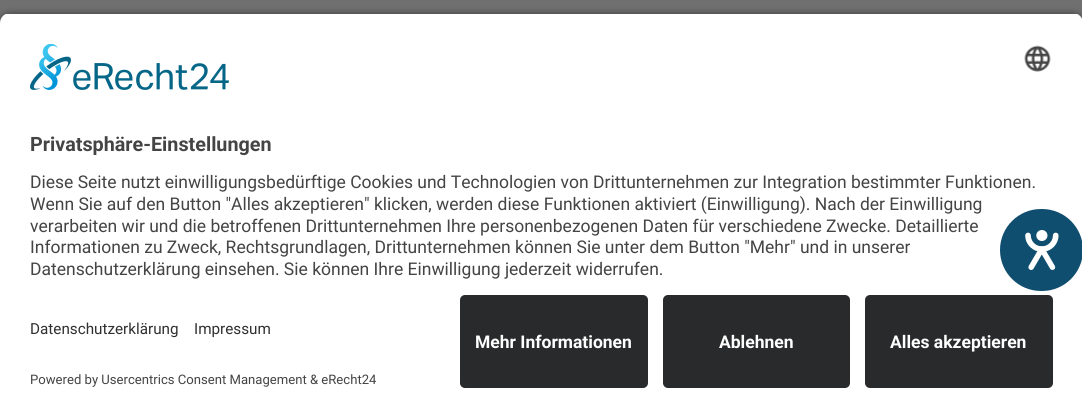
import math
import cairo

surface = cairo.ImageSurface(cairo.FORMAT_RGB24, 1082, 417)
c = cairo.Context(surface)
options = cairo.FontOptions()
options.set_hint_metrics(cairo.HINT_METRICS_OFF)
options.set_hint_style(cairo.HINT_STYLE_NONE)
c.set_font_options(options)
c.set_miter_limit(4)
def C(code):
 c.set_source_rgb(*(v / 255 for v in bytes.fromhex(code[-6:])))
def F(family, size, italic, bold):
 c.select_font_face(family, cairo.FONT_SLANT_ITALIC if italic else cairo.FONT_SLANT_NORMAL, cairo.FONT_WEIGHT_BOLD if bold else cairo.FONT_WEIGHT_NORMAL)
 c.set_font_size(size)
def T(x, y, s):
 c.move_to(x, y)
 c.show_text(s)
def R(x, y, w, h):
 c.rectangle(x, y, w, h)
 c.fill()
def Q(x, y, w, h, r):
 c.new_sub_path()
 for i, (u, v) in enumerate([(x + w - r, y + h - r), (x + r, y + h - r), (x + r, y + r), (x + w - r, y + r)]):
  c.arc(u, v, r, i * math.pi / 2, (i + 1) * math.pi / 2)
 c.close_path()
def S(x, y, w, h, r, blur, alpha):
 c.push_group_with_content(cairo.CONTENT_ALPHA)
 c.set_operator(cairo.OPERATOR_SOURCE)
 for i in range(15, -16, -2):
  e = blur * i / 6
  if min(w, h) + 2 * e > 0:
   c.set_source_rgba(0, 0, 0, alpha * math.erfc((i - 1) / 8.5) / 2)
   Q(x - e, y - e, w + 2 * e, h + 2 * e, max(0, min(r + e + blur * .6, min(w, h) / 2 + e)))
   c.fill()
 c.mask(c.pop_group())
def I(path, x, y, w, h):
 c.save()
 c.set_source_surface(cairo.ImageSurface.create_from_png(path), x, y)
 c.rectangle(x, y, w, h)
 c.fill()
 c.restore()
C('707070')
c.paint()
C('000000')
S(0,16,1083,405,10,4.5,.8)
c.save()
c.new_path()
c.move_to(10,13)
c.line_to(1073,13)
c.curve_to(1078.5,13,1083,17.5,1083,23)
c.line_to(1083,285)
c.line_to(0,285)
c.line_to(0,23)
c.curve_to(0,17.5,4.5,13,10,13)
c.close_path()
c.clip()
C('ffffff')
R(0,14,1082,271)
c.restore()
I('1.png',30,44,199,46)
I('2.png',1024,45,27,27)
F('Roboto',19.75,0,1)
C('444444')
T(30,151,'Privatsphäre-Einstellungen')
F('Roboto',17.5,0,0)
T(30,188,'Diese Seite nutzt einwilligungsbedürftige Cookies und Technologien von Drittunternehmen zur Integration bestimmter Funktionen.')
T(30,210,'Wenn Sie auf den Button "Alles akzeptieren" klicken, werden diese Funktionen aktiviert (Einwilligung). Nach der Einwilligung')
T(30,232,'verarbeiten wir und die betroffenen Drittunternehmen Ihre personenbezogenen Daten für verschiedene Zwecke. Detaillierte')
T(30,253,'Informationen zu Zweck, Rechtsgrundlagen, Drittunternehmen können Sie unter dem Button "Mehr" und in unserer')
T(30,275,'Datenschutzerklärung einsehen. Sie können Ihre Einwilligung jederzeit widerrufen.')
C('ffffff')
R(0,285,1082,132)
F('Roboto',15.25,0,0)
C('303030')
T(30,334,'Datenschutzerklärung')
T(194,334,'Impressum')
F('Roboto',13.1,0,0)
C('444444')
T(30,384,'Powered by Usercentrics Consent Management & eRecht24')
C('292a2b')
Q(460,295,188,93,5)
c.fill()
F('Roboto',17.5,0,1)
C('ffffff')
T(475,348,'Mehr Informationen')
C('292a2b')
Q(663,295,187,93,5)
c.fill()
C('ffffff')
T(719,348,'Ablehnen')
C('292a2b')
Q(865,295,188,93,5)
c.fill()
C('ffffff')
T(890,348,'Alles akzeptieren')
C('104e70')
Q(1000,209,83,82,41)
c.fill()
I('3.png',1025,230,34,40)
surface.write_to_png('o.png')
